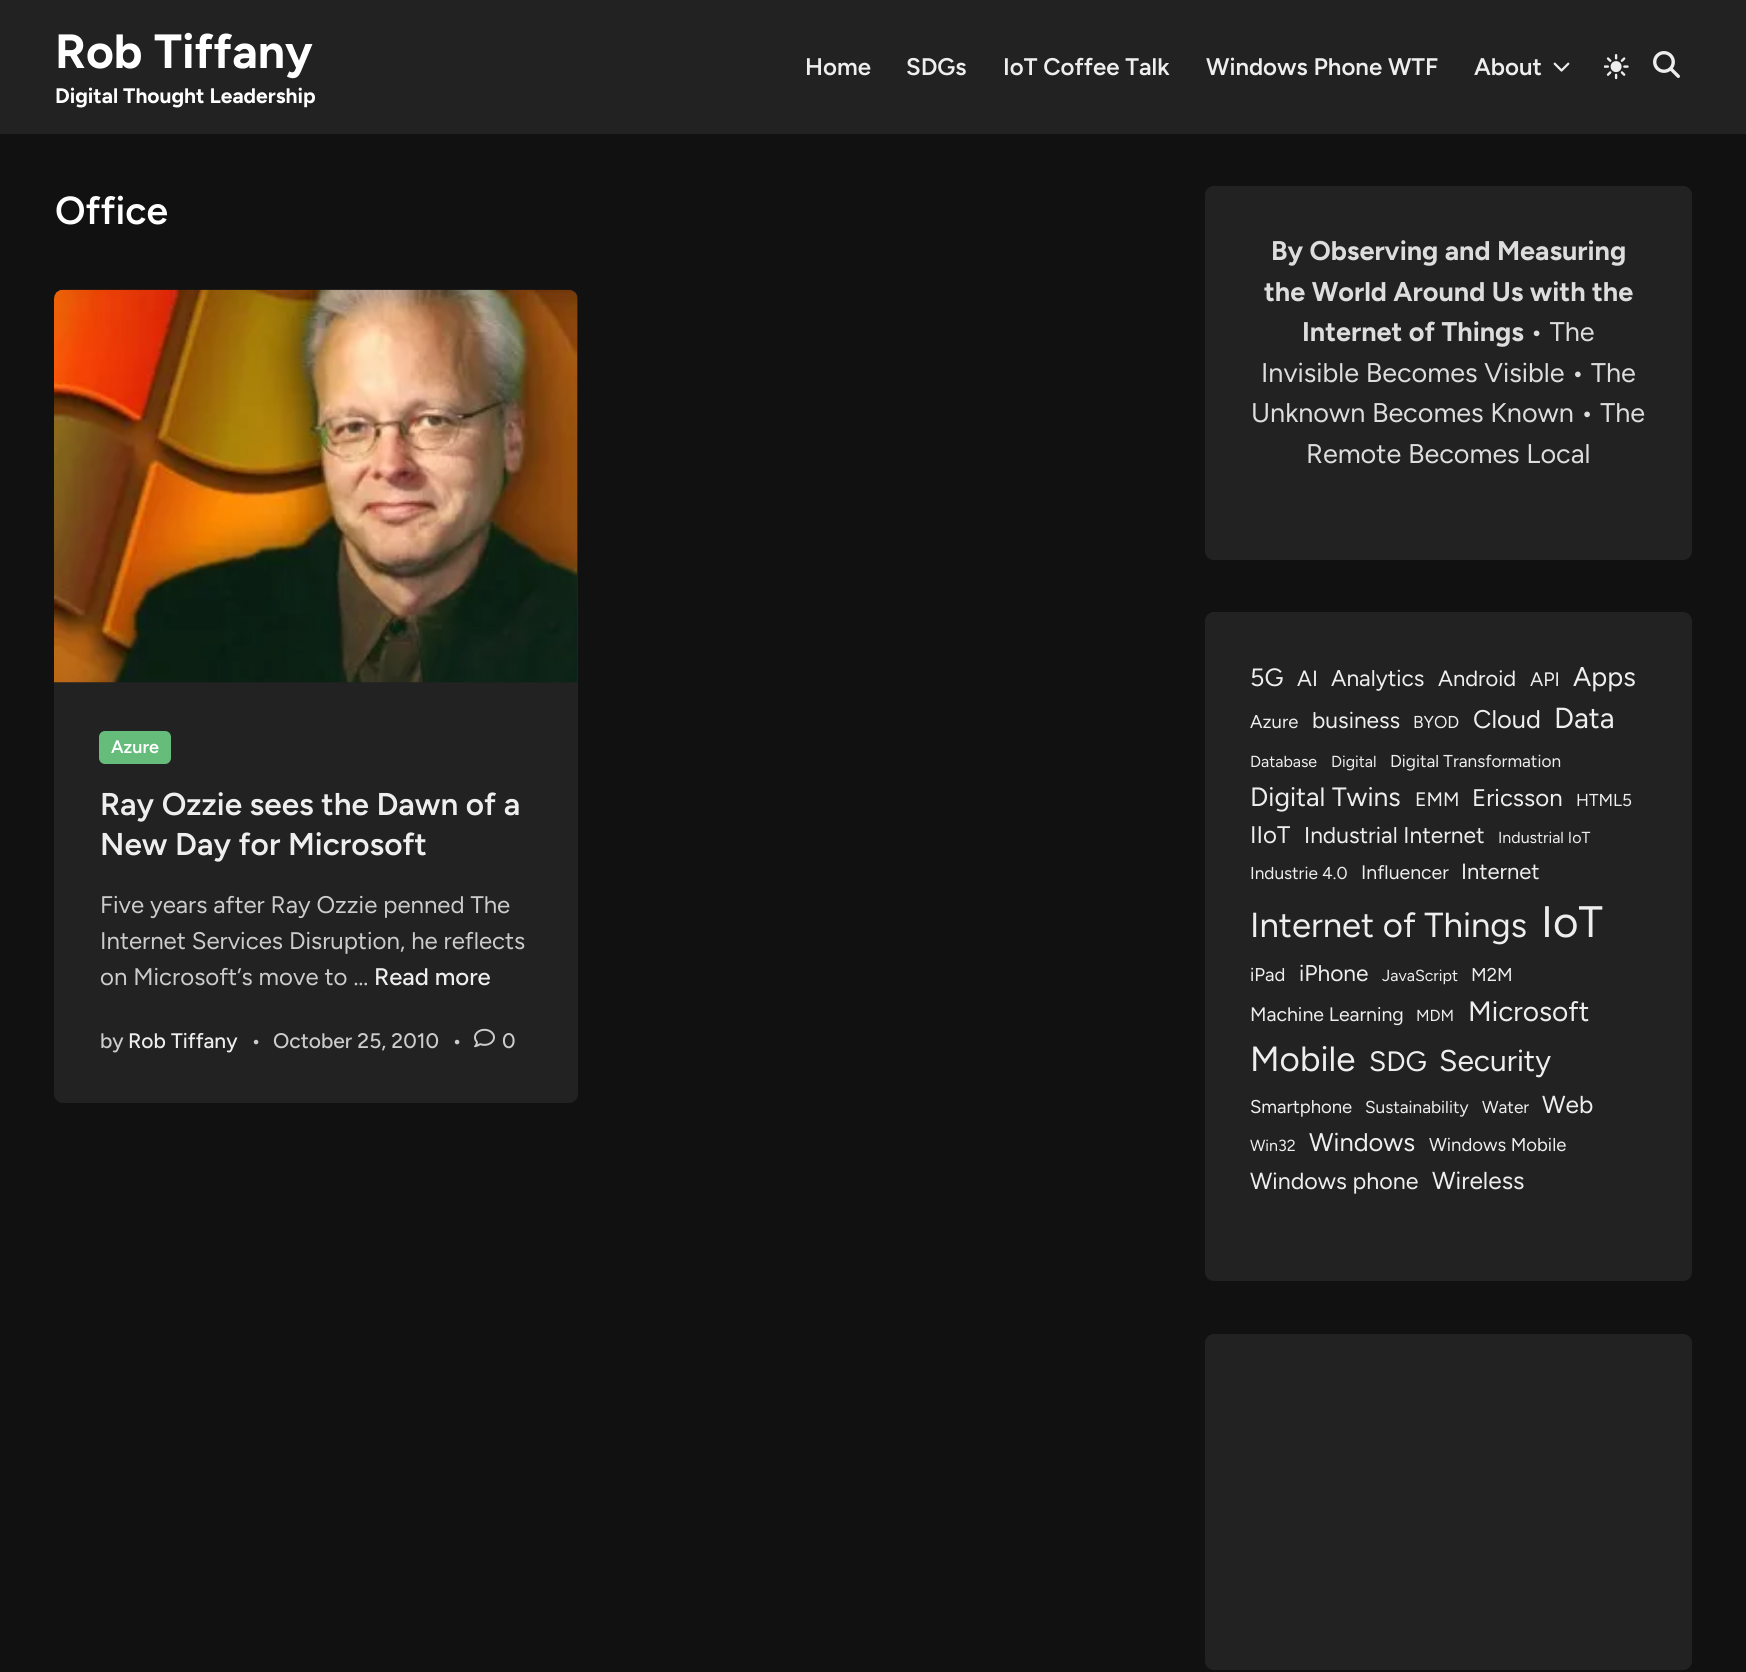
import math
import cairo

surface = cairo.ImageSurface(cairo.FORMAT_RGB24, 1746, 1672)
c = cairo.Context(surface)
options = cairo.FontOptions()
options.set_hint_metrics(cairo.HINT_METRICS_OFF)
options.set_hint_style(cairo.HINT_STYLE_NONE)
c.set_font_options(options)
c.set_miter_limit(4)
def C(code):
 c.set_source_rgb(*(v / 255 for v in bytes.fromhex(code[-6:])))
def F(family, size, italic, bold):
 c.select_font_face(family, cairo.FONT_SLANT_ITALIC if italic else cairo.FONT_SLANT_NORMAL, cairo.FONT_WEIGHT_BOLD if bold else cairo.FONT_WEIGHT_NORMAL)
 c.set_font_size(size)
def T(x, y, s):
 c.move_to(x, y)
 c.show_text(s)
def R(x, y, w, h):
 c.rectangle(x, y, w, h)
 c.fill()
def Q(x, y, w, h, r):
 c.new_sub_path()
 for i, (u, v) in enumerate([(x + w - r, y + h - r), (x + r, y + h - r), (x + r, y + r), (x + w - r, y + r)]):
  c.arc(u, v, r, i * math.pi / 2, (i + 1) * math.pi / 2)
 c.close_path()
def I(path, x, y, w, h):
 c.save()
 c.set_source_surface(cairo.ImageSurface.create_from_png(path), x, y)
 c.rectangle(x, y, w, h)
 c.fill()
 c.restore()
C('111111')
c.paint()
C('222222')
R(0,0,1746,134)
F('Figtree',48,0,1)
C('ffffff')
T(55,68,'Rob Tiffany')
F('Figtree',21,0,1)
T(55,103,'Digital Thought Leadership')
F('Figtree SemiBold',24,0,0)
C('eeeeee')
T(805,75,'Home')
T(906,75,'SDGs')
T(1003,75,'IoT Coffee Talk')
T(1206,75,'Windows Phone WTF')
T(1474,75,'About')
I('1.png',1553,62,17,10)
I('2.png',1604,54,25,26)
I('3.png',1653,51,27,27)
F('Figtree SemiBold',39,0,0)
C('ffffff')
T(55,224,'Office')
C('222222')
Q(54,290,524,813,9)
c.fill()
I('4.png',54,289,524,394)
C('65bc7b')
Q(99,731,72,33,6)
c.fill()
F('Figtree SemiBold',18,0,0)
C('ffffff')
T(111,753,'Azure')
F('Figtree SemiBold',31.5,0,0)
C('eeeeee')
T(100,815,'Ray Ozzie sees the Dawn of a')
T(100,855,'New Day for Microsoft')
F('Figtree',24,0,0)
C('cccccc')
T(100,913,'Five years after Ray Ozzie penned The')
T(100,949,'Internet Services Disruption, he reflects')
T(100,985,'on Microsoft’s move to …')
F('Figtree Medium',24,0,0)
C('eeeeee')
T(374,985,'Read more')
F('Figtree Medium',21,0,0)
C('cccccc')
T(100,1048,'by')
C('eeeeee')
T(128,1048,'Rob Tiffany')
C('cccccc')
T(251,1048,'•')
T(273,1048,'October 25, 2010')
T(452,1048,'•')
I('5.png',474,1028,21,20)
T(502,1048,'0')
C('222222')
Q(1205,186,487,374,9)
c.fill()
F('Figtree',27,0,1)
C('dddddd')
T(1271,260,'By Observing and Measuring')
T(1264,301,'the World Around Us with the')
T(1302,341,'Internet of Things')
F('Figtree',27,0,0)
T(1530,341,'• The')
T(1261,382,'Invisible Becomes Visible • The')
T(1251,422,'Unknown Becomes Known • The')
T(1306,463,'Remote Becomes Local')
C('222222')
Q(1205,612,487,669,9)
c.fill()
F('Figtree',25,0,0)
C('eeeeee')
T(1250,686,'5G')
F('Figtree',22,0,0)
T(1297,686,'AI')
F('Figtree',22.75,0,0)
T(1331,686,'Analytics')
F('Figtree',22,0,0)
T(1438,686,'Android')
F('Figtree',19.5,0,0)
T(1530,686,'API')
F('Figtree',27,0,0)
T(1573,686,'Apps')
F('Figtree',18.5,0,0)
T(1250,728,'Azure')
F('Figtree',22.75,0,0)
T(1312,728,'business')
F('Figtree',17.25,0,0)
T(1413,728,'BYOD')
F('Figtree',25.5,0,0)
T(1473,728,'Cloud')
F('Figtree',29,0,0)
T(1554,728,'Data')
F('Figtree',16,0,0)
T(1250,767,'Database')
T(1331,767,'Digital')
F('Figtree',17.25,0,0)
T(1390,767,'Digital Transformation')
F('Figtree',26.5,0,0)
T(1250,806,'Digital Twins')
F('Figtree',19.5,0,0)
T(1415,806,'EMM')
F('Figtree',24,0,0)
T(1472,806,'Ericsson')
F('Figtree',17.25,0,0)
T(1576,806,'HTML5')
F('Figtree',24,0,0)
T(1250,843,'IIoT')
F('Figtree',22.75,0,0)
T(1304,843,'Industrial Internet')
F('Figtree',16,0,0)
T(1498,843,'Industrial IoT')
F('Figtree',17.25,0,0)
T(1250,879,'Industrie 4.0')
F('Figtree',19.5,0,0)
T(1361,879,'Influencer')
F('Figtree',22,0,0)
T(1461,879,'Internet')
F('Figtree',34.75,0,0)
T(1250,937,'Internet of Things')
F('Figtree',44,0,0)
T(1541,937,'IoT')
F('Figtree',18.5,0,0)
T(1250,981,'iPad')
F('Figtree',22.75,0,0)
T(1299,981,'iPhone')
F('Figtree',16,0,0)
T(1382,981,'JavaScript')
F('Figtree',18.5,0,0)
T(1471,981,'M2M')
F('Figtree',19.5,0,0)
T(1250,1021,'Machine Learning')
F('Figtree',16,0,0)
T(1416,1021,'MDM')
F('Figtree',28,0,0)
T(1468,1021,'Microsoft')
F('Figtree',35,0,0)
T(1250,1071,'Mobile')
F('Figtree',28,0,0)
T(1369,1071,'SDG')
F('Figtree',30,0,0)
T(1439,1071,'Security')
F('Figtree',18.5,0,0)
T(1250,1113,'Smartphone')
F('Figtree',17.25,0,0)
T(1365,1113,'Sustainability')
T(1482,1113,'Water')
F('Figtree',24.5,0,0)
T(1542,1113,'Web')
F('Figtree',16,0,0)
T(1250,1151,'Win32')
F('Figtree',25.5,0,0)
T(1309,1151,'Windows')
F('Figtree',18.5,0,0)
T(1429,1151,'Windows Mobile')
F('Figtree',23.25,0,0)
T(1250,1189,'Windows phone')
F('Figtree',24.5,0,0)
T(1432,1189,'Wireless')
C('222222')
Q(1205,1334,487,336,9)
c.fill()
surface.write_to_png('o.png')
